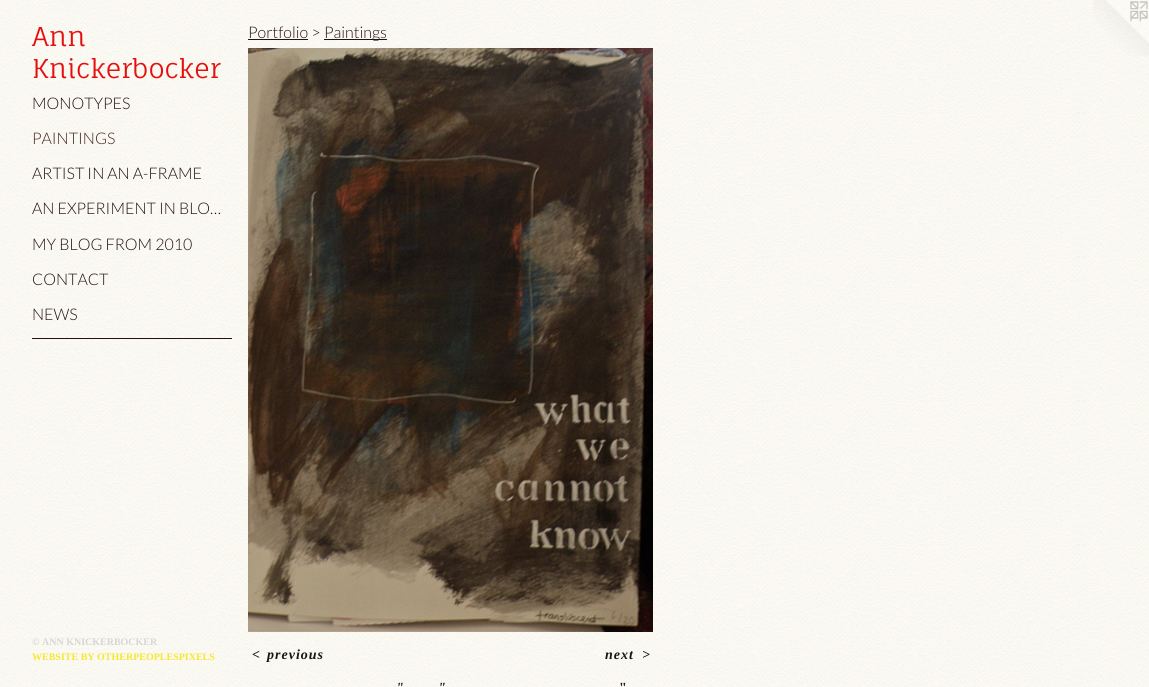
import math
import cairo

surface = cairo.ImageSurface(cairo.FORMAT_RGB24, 1149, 687)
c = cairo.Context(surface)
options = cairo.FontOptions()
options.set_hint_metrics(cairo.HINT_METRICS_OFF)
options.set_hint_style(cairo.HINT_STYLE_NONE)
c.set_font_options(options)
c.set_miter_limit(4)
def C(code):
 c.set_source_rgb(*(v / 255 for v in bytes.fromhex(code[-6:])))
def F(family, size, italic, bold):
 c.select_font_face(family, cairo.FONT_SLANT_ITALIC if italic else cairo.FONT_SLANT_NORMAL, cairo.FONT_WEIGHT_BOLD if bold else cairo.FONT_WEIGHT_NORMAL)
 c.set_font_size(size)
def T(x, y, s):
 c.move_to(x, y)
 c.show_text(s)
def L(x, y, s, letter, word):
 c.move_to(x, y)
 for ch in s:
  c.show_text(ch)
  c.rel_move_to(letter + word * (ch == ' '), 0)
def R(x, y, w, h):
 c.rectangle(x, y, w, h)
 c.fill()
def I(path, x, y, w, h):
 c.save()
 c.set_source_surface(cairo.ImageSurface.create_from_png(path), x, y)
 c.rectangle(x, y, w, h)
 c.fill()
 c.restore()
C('ffffff')
c.paint()
I('1.png',0,0,1149,687)
F('Fauna One',26,0,0)
C('e60f0f')
T(32,46,'Ann')
T(32,78,'Knickerbocker')
F('Lato Light',16,0,0)
C('221111')
T(32,109,'MONOTYPES')
C('442222')
T(32,144,'PAINTINGS')
C('221111')
T(32,179,'ARTIST IN AN A-FRAME')
T(32,214,'AN EXPERIMENT IN BLO…')
T(32,250,'MY BLOG FROM 2010')
T(32,285,'CONTACT')
T(32,320,'NEWS')
R(32,338,200,1)
F('Liberation Serif',10,0,1)
C('d6d6d6')
T(32,645,'© ANN KNICKERBOCKER')
C('f8e730')
T(32,660,'WEBSITE BY OTHERPEOPLESPIXELS')
F('Lato Light',16,0,0)
C('221111')
T(248,38,'Portfolio >')
R(248,39,60,1)
R(324,39,63,1)
T(324,38,'Paintings')
I('2.png',248,48,405,584)
F('Liberation Serif',14,1,1)
C('161613')
L(252,659,'<',1,0)
L(267,659,'previous',1,0)
L(605,659,'next',1,0)
L(642,659,'>',1,0)
T(396,692,'"')
T(438,692,'"')
F('Liberation Serif',14,0,1)
T(619,692,'"')
I('3.png',1093,0,56,56)
surface.write_to_png('o.png')
